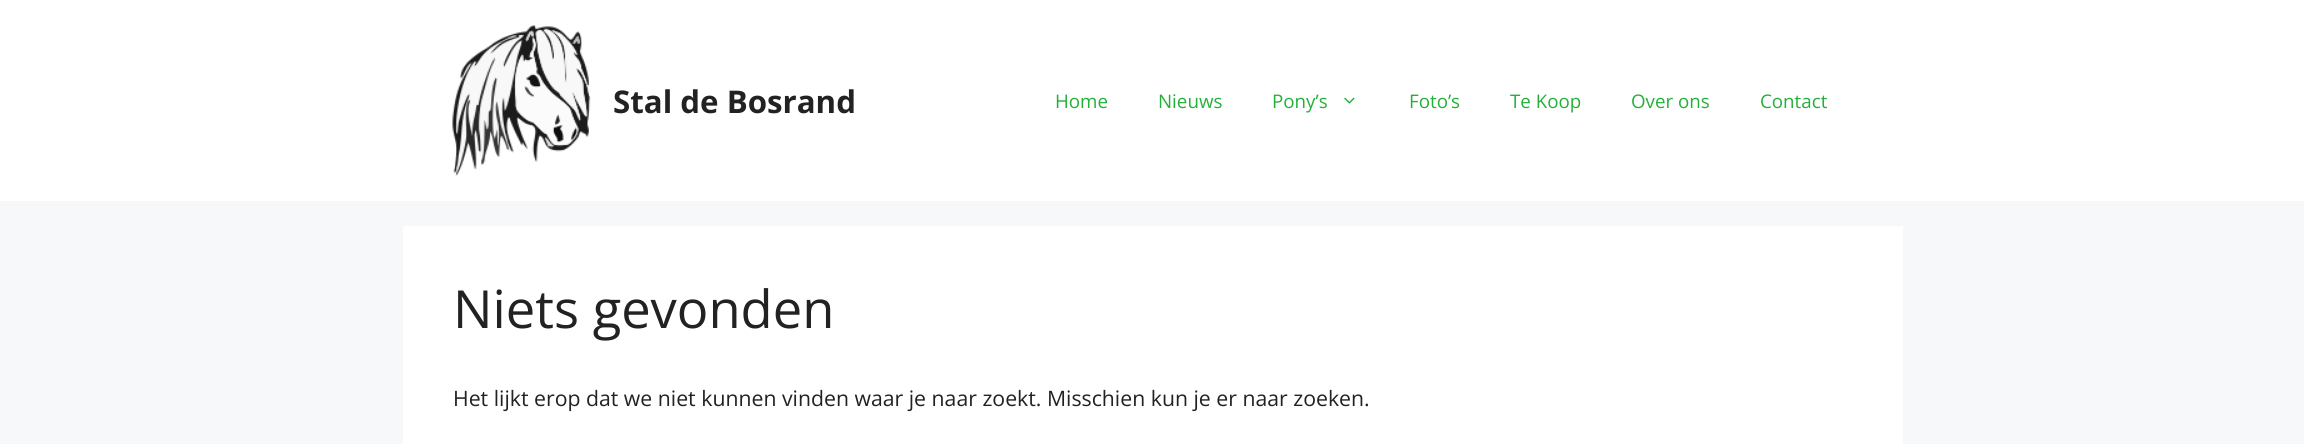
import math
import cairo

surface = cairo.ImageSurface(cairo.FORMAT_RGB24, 2304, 444)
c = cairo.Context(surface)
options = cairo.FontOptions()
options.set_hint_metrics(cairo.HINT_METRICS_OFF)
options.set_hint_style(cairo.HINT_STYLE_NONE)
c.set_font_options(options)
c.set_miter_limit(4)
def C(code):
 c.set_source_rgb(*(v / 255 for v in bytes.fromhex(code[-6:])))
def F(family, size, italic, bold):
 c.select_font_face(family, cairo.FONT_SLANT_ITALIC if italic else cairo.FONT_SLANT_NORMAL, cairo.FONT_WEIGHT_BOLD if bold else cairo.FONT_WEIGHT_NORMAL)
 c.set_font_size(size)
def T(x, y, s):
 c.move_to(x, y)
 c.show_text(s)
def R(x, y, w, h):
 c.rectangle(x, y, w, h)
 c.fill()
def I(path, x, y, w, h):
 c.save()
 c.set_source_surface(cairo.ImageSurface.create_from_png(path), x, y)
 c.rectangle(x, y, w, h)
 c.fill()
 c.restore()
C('f7f8f9')
c.paint()
C('ffffff')
R(0,0,2304,201)
I('1.png',452,25,139,151)
F('Open Sans',31.25,0,1)
C('222222')
T(613,113,'Stal de Bosrand')
F('Open Sans',18.75,0,0)
C('23b038')
T(1055,108,'Home')
T(1158,108,'Nieuws')
T(1272,108,'Pony’s')
I('2.png',1344,97,11,7)
T(1409,108,'Foto’s')
T(1510,108,'Te Koop')
T(1631,108,'Over ons')
T(1760,108,'Contact')
C('ffffff')
R(403,226,1500,218)
F('Open Sans',52.5,0,0)
C('222222')
T(453,328,'Niets gevonden')
F('Open Sans',21.25,0,0)
T(453,406,'Het lijkt erop dat we niet kunnen vinden waar je naar zoekt. Misschien kun je er naar zoeken.')
surface.write_to_png('o.png')
